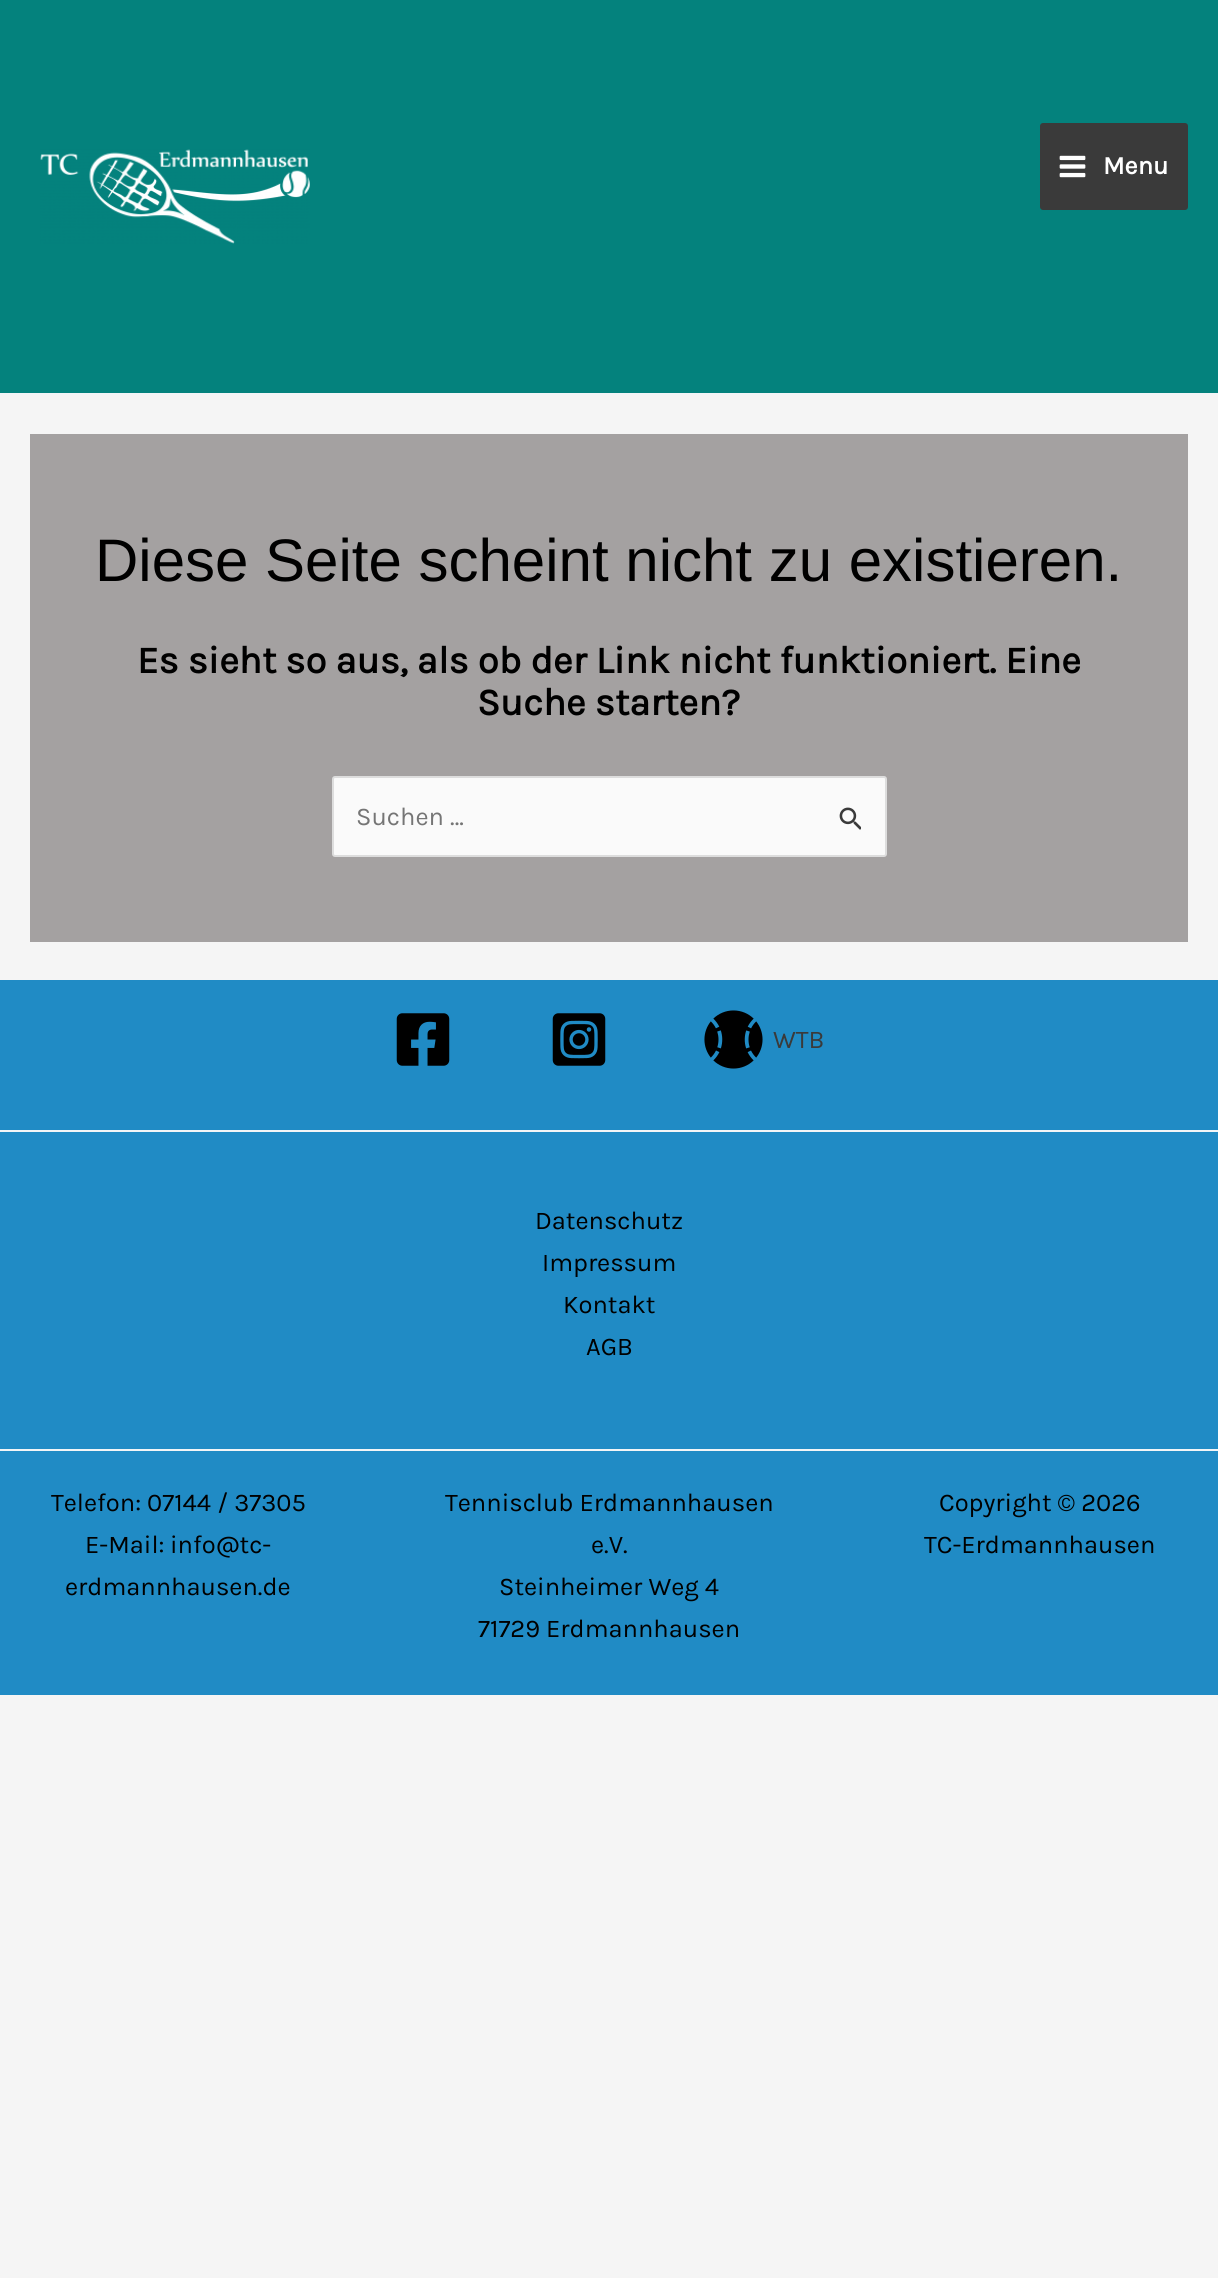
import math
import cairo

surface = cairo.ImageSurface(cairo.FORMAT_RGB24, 1218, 2278)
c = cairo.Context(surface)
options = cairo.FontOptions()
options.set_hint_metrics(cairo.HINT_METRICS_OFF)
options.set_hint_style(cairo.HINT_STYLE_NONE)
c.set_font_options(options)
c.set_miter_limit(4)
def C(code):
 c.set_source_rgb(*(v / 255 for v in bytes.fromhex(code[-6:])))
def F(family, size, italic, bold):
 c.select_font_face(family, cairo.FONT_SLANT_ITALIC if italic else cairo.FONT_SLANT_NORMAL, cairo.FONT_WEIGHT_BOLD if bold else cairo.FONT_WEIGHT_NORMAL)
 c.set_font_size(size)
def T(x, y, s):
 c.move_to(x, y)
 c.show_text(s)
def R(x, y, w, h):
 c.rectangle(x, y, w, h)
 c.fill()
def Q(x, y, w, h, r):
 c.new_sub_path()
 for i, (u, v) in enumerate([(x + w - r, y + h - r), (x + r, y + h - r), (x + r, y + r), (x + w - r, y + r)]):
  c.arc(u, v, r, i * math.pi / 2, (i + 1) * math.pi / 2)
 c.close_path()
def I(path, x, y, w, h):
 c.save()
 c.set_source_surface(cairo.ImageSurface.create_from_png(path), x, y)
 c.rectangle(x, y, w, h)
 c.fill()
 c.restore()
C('f5f5f5')
c.paint()
C('04827d')
R(0,0,1218,393)
C('f2f5f7')
R(0,393,1218,2)
I('1.png',40,149,270,95)
C('3a3a3a')
Q(1040,123,148,87,3)
c.fill()
I('2.png',1059,155,27,23)
F('Karla',25.5,0,1)
C('ffffff')
T(1103,174,'Menu')
C('a4a1a1')
R(30,434,1158,508)
F('Liberation Sans',60,0,0)
C('000000')
T(95,581,'Diese Seite scheint nicht zu existieren.')
F('Karla',38.25,0,1)
T(137,673,'Es sieht so aus, als ob der Link nicht funktioniert. Eine')
T(477,715,'Suche starten?')
C('fafafa')
Q(333,777,553,79,2)
c.fill_preserve()
C('dddddd')
c.stroke()
F('Karla',25.5,0,0)
C('757575')
T(356,825,'Suchen …')
I('3.png',839,807,22,23)
C('208bc5')
R(0,980,1218,150)
I('4.png',396,1013,54,53)
I('5.png',552,1013,54,53)
I('6.png',704,1010,59,59)
C('3a3a3a')
T(773,1048,'WTB')
C('208bc5')
R(0,1132,1218,317)
C('f2f5f7')
R(0,1130,1218,2)
C('000000')
T(535,1229,'Datenschutz')
T(542,1271,'Impressum')
T(563,1313,'Kontakt')
T(586,1355,'AGB')
C('208bc5')
R(0,1451,1218,244)
C('f2f5f7')
R(0,1449,1218,2)
C('000000')
T(51,1511,'Telefon: 07144 / 37305')
T(85,1553,'E-Mail:')
T(170,1553,'info@tc-')
T(65,1595,'erdmannhausen.de')
T(445,1511,'Tennisclub Erdmannhausen')
T(591,1553,'e.V.')
T(499,1595,'Steinheimer Weg 4')
T(478,1637,'71729 Erdmannhausen')
T(939,1511,'Copyright © 2026')
T(924,1553,'TC-Erdmannhausen')
surface.write_to_png('o.png')
